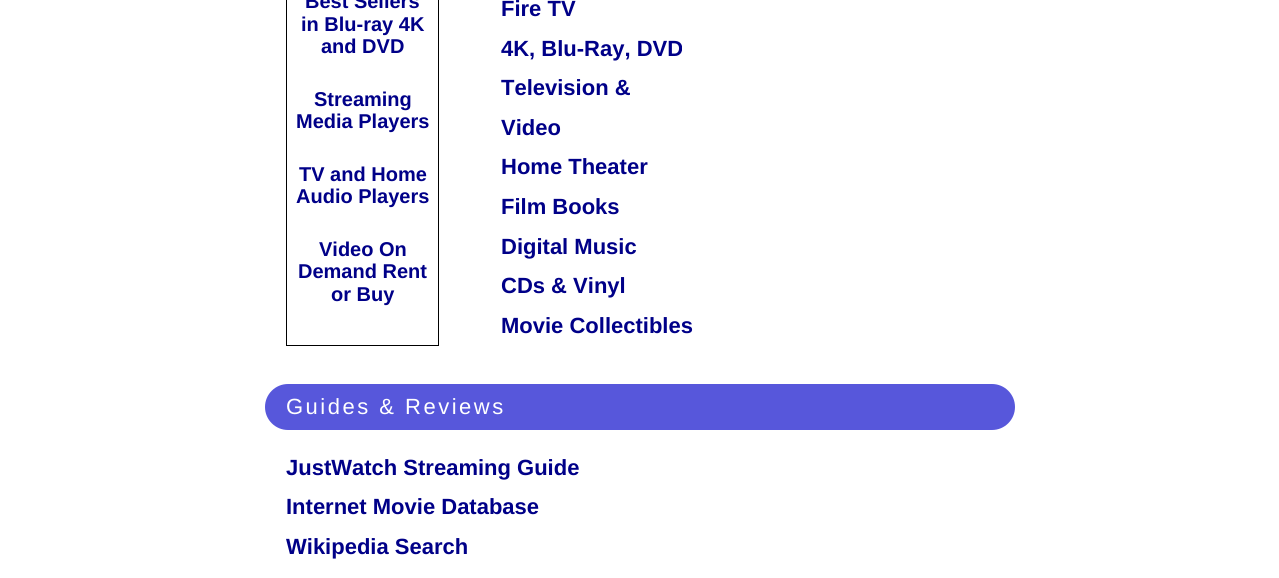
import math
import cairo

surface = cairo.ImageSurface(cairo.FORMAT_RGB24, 1279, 578)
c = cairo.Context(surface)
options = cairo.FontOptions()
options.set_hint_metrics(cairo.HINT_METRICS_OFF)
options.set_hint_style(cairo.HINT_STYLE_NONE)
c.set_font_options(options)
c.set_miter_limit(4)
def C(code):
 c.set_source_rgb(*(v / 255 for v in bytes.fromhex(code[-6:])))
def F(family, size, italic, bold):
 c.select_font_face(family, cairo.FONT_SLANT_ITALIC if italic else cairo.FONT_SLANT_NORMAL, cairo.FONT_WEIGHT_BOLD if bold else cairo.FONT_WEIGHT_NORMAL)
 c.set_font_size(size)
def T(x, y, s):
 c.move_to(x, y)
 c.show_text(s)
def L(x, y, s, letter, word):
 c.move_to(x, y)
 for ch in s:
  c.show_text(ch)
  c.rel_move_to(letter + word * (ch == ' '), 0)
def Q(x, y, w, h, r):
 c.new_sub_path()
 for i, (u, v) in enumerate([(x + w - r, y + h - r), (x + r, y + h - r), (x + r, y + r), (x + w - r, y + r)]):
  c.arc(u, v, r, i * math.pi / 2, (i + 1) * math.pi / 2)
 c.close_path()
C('ffffff')
c.paint()
c.rectangle(286.5,-.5,152,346)
C('000000')
c.set_line_width(1)
c.stroke()
F('Liberation Sans',20,0,1)
C('000088')
T(305,8,'Best Sellers')
T(301,31,'in Blu-ray 4K')
T(321,53,'and DVD')
T(314,106,'Streaming')
T(296,128,'Media Players')
T(299,181,'TV and Home')
T(296,203,'Audio Players')
T(319,256,'Video On')
T(298,278,'Demand Rent')
T(331,301,'or Buy')
F('Liberation Sans',22,0,1)
T(501,16,'Fire TV')
T(501,56,'4K, Blu-Ray, DVD')
T(501,95,'Television &')
T(501,135,'Video')
T(501,174,'Home Theater')
T(501,214,'Film Books')
T(501,254,'Digital Music')
T(501,293,'CDs & Vinyl')
T(501,333,'Movie Collectibles')
C('5757db')
Q(265,384,750,46,23)
c.fill()
F('Liberation Sans',22,0,0)
C('ffffff')
L(286,414,'Guides & Reviews',2.5,0)
F('Liberation Sans',22,0,1)
C('000088')
T(286,475,'JustWatch Streaming Guide')
T(286,514,'Internet Movie Database')
T(286,554,'Wikipedia Search')
surface.write_to_png('o.png')
